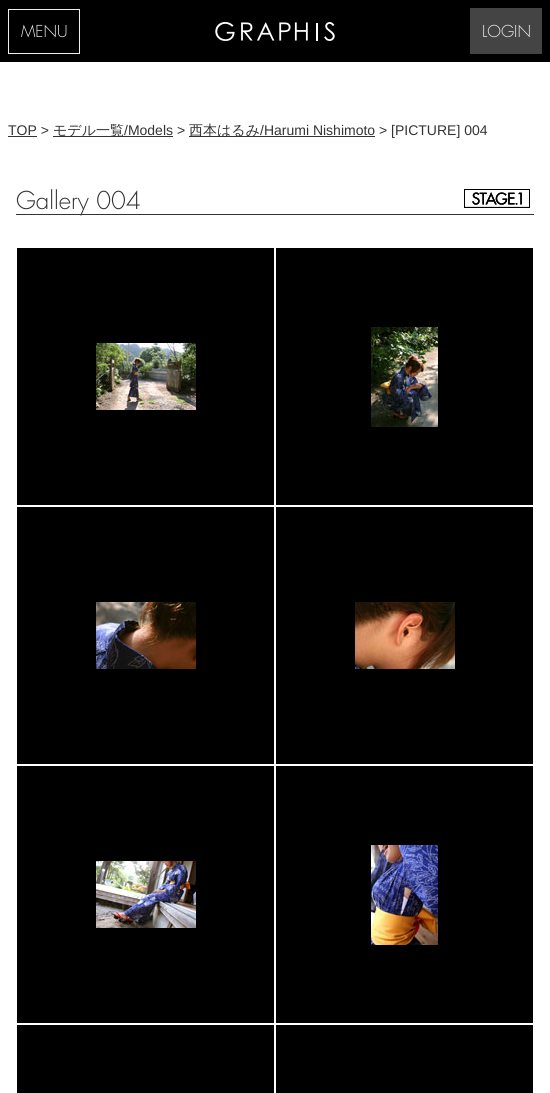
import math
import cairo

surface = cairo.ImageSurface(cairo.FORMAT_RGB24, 550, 1093)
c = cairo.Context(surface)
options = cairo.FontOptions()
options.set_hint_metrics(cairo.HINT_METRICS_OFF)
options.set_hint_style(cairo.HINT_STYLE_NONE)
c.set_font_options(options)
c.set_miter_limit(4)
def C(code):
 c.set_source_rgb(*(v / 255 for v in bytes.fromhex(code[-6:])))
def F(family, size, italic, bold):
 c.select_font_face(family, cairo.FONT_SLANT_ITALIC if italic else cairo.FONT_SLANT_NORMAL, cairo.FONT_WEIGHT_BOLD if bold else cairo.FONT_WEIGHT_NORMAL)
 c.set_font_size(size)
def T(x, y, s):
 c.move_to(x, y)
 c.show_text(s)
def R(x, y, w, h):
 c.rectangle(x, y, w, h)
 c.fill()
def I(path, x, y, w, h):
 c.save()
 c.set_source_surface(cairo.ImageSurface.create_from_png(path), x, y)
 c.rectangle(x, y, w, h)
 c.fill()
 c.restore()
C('ffffff')
c.paint()
C('000000')
R(0,0,550,62)
c.rectangle(8.5,9.5,71,44)
C('eeeeee')
c.set_line_width(1)
c.stroke()
F('Futura Light',16,0,0)
T(21,37,'MENU')
I('1.png',215,22,120,19)
C('444444')
R(470,8,72,46)
C('eeeeee')
T(482,37,'LOGIN')
F('Liberation Sans',14,0,0)
C('333333')
T(8,135,'TOP >')
R(8,136,29,1)
R(53,136,120,1)
F('WenQuanYi Zen Hei Medium',14,0,0)
T(53,135,'モデル一覧')
F('Liberation Sans',14,0,0)
T(124,135,'/Models >')
R(189,136,186,1)
F('WenQuanYi Zen Hei Medium',14,0,0)
T(189,135,'西本はるみ')
F('Liberation Sans',14,0,0)
T(260,135,'/Harumi Nishimoto > [PICTURE] 004')
R(16,214,518,1)
F('Futura Light',24,0,0)
T(16,209,'Gallery 004')
I('2.png',464,189,66,19)
C('000000')
R(17,248,257,257)
I('3.png',96,343,100,67)
R(276,248,257,257)
I('4.png',371,327,67,100)
R(17,507,257,257)
I('5.png',96,602,100,67)
R(276,507,257,257)
I('6.png',355,602,100,67)
R(17,766,257,257)
I('7.png',96,861,100,67)
R(276,766,257,257)
I('8.png',371,845,67,100)
R(17,1025,257,68)
R(276,1025,257,68)
surface.write_to_png('o.png')
